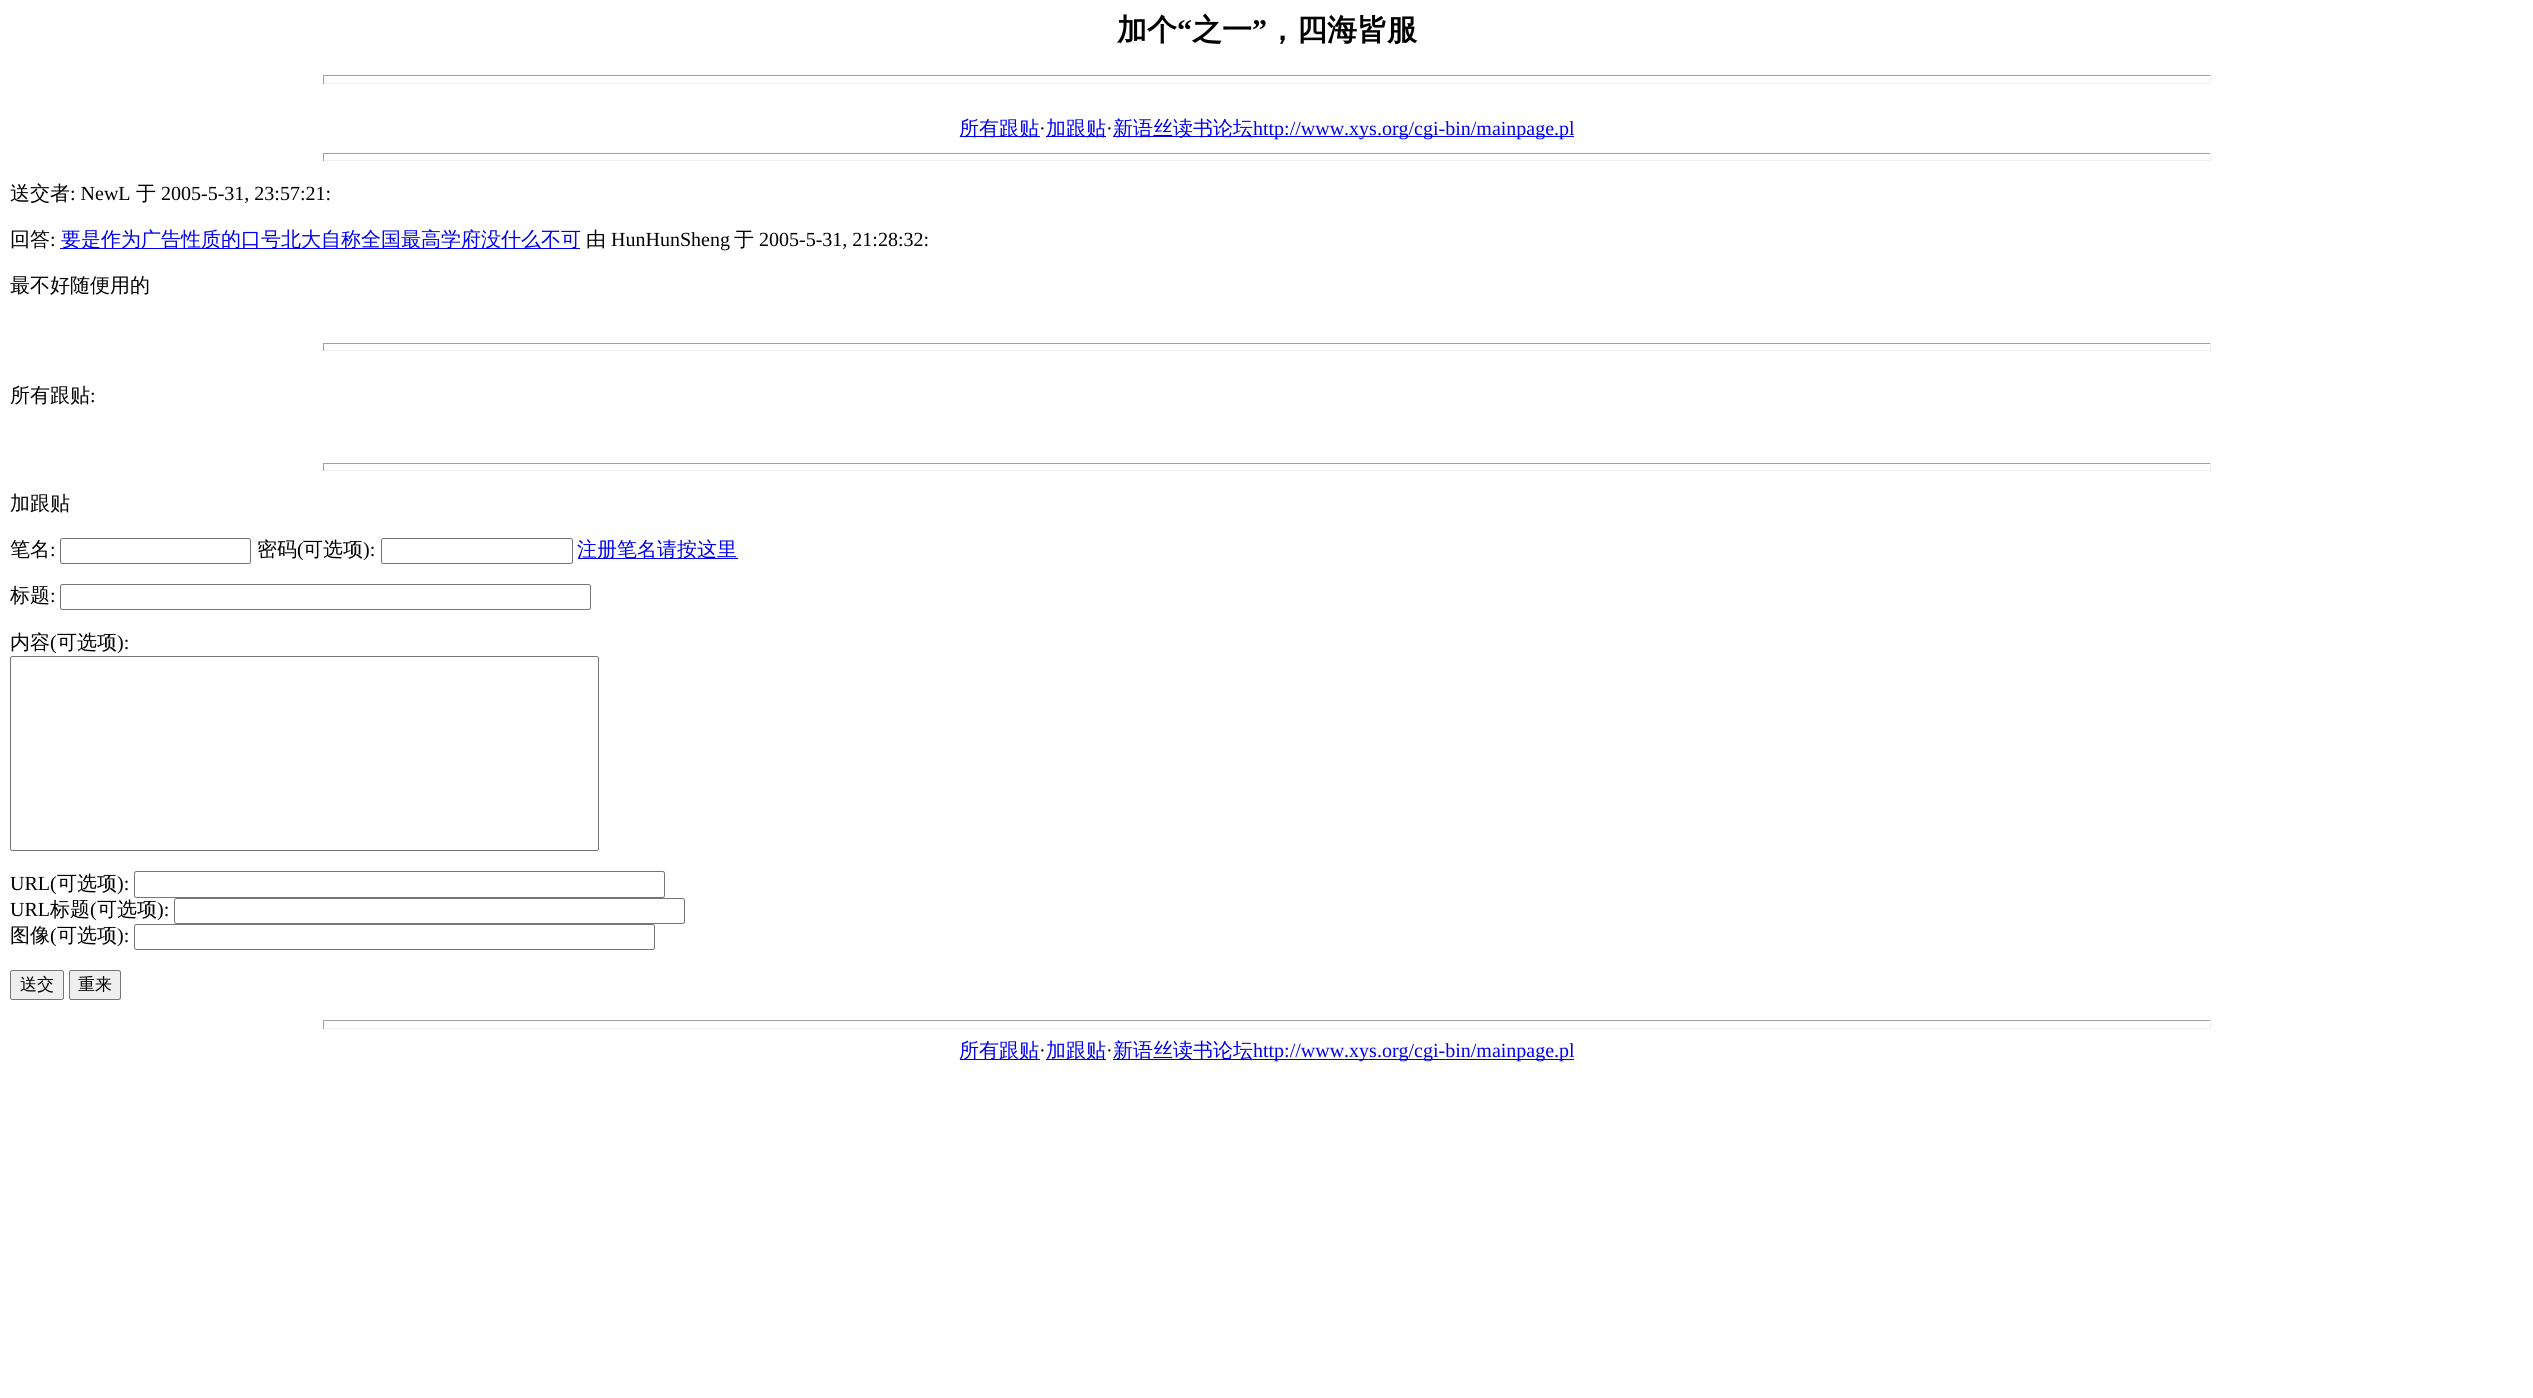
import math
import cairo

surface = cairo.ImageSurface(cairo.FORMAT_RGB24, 2533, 1398)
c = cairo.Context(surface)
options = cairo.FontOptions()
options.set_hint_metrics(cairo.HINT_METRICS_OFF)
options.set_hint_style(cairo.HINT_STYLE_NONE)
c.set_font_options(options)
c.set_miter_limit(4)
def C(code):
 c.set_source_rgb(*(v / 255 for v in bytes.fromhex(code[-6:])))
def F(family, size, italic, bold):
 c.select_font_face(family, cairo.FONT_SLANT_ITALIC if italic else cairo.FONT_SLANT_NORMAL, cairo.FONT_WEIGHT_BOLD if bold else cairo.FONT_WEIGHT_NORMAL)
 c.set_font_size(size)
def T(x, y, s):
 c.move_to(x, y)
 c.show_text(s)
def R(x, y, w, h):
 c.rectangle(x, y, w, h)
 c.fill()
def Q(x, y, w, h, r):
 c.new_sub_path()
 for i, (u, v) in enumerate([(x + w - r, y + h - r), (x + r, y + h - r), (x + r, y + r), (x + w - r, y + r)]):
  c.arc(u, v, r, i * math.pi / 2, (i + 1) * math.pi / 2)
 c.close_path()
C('ffffff')
c.paint()
F('WenQuanYi Zen Hei',30,0,1)
C('000000')
T(1117,40,'加个')
F('Liberation Serif',30,0,1)
T(1177,40,'“')
F('WenQuanYi Zen Hei',30,0,1)
T(1192,40,'之一')
F('Liberation Serif',30,0,1)
T(1252,40,'”')
F('WenQuanYi Zen Hei',30,0,1)
T(1267,40,'，四海皆服')
C('9f9f9f')
R(323,75,1888,1)
C('eeeeee')
R(2210,75,1,9)
R(323,83,1888,1)
C('9f9f9f')
R(323,75,1,9)
C('0000ee')
R(960,136,80,1)
F('WenQuanYi Zen Hei Medium',20,0,0)
T(959,135,'所有跟贴')
F('Liberation Serif',20,0,0)
C('000000')
T(1039,135,'·')
C('0000ee')
R(1046,136,60,1)
F('WenQuanYi Zen Hei Medium',20,0,0)
T(1046,135,'加跟贴')
F('Liberation Serif',20,0,0)
C('000000')
T(1106,135,'·')
C('0000ee')
R(1113,136,461,1)
F('WenQuanYi Zen Hei Medium',20,0,0)
T(1113,135,'新语丝读书论坛')
F('Liberation Serif',20,0,0)
T(1253,135,'http://www.xys.org/cgi-bin/mainpage.pl')
C('9f9f9f')
R(323,153,1888,1)
C('eeeeee')
R(2210,153,1,8)
R(323,160,1888,1)
C('9f9f9f')
R(323,153,1,8)
F('WenQuanYi Zen Hei Medium',20,0,0)
C('000000')
T(10,200,'送交者')
F('Liberation Serif',20,0,0)
T(70,200,': NewL')
F('WenQuanYi Zen Hei Medium',20,0,0)
T(136,200,'于')
F('Liberation Serif',20,0,0)
T(161,200,'2005-5-31, 23:57:21:')
F('WenQuanYi Zen Hei Medium',20,0,0)
T(10,246,'回答')
F('Liberation Serif',20,0,0)
T(50,246,':')
C('0000ee')
R(60,248,520,1)
F('WenQuanYi Zen Hei Medium',20,0,0)
T(61,246,'要是作为广告性质的口号北大自称全国最高学府没什么不可')
C('000000')
T(586,246,'由')
F('Liberation Serif',20,0,0)
T(611,246,'HunHunSheng')
F('WenQuanYi Zen Hei Medium',20,0,0)
T(734,246,'于')
F('Liberation Serif',20,0,0)
T(759,246,'2005-5-31, 21:28:32:')
F('WenQuanYi Zen Hei Medium',20,0,0)
T(10,292,'最不好随便用的')
C('9f9f9f')
R(323,343,1888,1)
C('eeeeee')
R(2210,343,1,8)
R(323,350,1888,1)
C('9f9f9f')
R(323,343,1,8)
C('000000')
T(10,402,'所有跟贴')
F('Liberation Serif',20,0,0)
T(90,402,':')
C('9f9f9f')
R(323,463,1888,1)
C('eeeeee')
R(2210,463,1,8)
R(323,470,1888,1)
C('9f9f9f')
R(323,463,1,8)
F('WenQuanYi Zen Hei Medium',20,0,0)
C('000000')
T(10,510,'加跟贴')
T(10,556,'笔名')
F('Liberation Serif',20,0,0)
T(50,556,':')
Q(60.5,538.5,190,25,2)
C('767676')
c.set_line_width(1)
c.stroke()
F('WenQuanYi Zen Hei Medium',20,0,0)
C('000000')
T(257,556,'密码')
F('Liberation Serif',20,0,0)
T(297,556,'(')
F('WenQuanYi Zen Hei Medium',20,0,0)
T(303,556,'可选项')
F('Liberation Serif',20,0,0)
T(363,556,'):')
Q(381.5,538.5,191,25,2)
C('767676')
c.stroke()
C('0000ee')
R(578,558,160,1)
F('WenQuanYi Zen Hei Medium',20,0,0)
T(577,556,'注册笔名请按这里')
C('000000')
T(10,602,'标题')
F('Liberation Serif',20,0,0)
T(50,602,':')
Q(60.5,584.5,530,25,2)
C('767676')
c.stroke()
F('WenQuanYi Zen Hei Medium',20,0,0)
C('000000')
T(10,649,'内容')
F('Liberation Serif',20,0,0)
T(50,649,'(')
F('WenQuanYi Zen Hei Medium',20,0,0)
T(57,649,'可选项')
F('Liberation Serif',20,0,0)
T(117,649,'):')
Q(10.5,656.5,588,194,2)
C('767676')
c.stroke()
C('000000')
T(10,890,'URL(')
F('WenQuanYi Zen Hei Medium',20,0,0)
T(57,890,'可选项')
F('Liberation Serif',20,0,0)
T(117,890,'):')
Q(134.5,871.5,530,26,2)
C('767676')
c.stroke()
C('000000')
T(10,916,'URL')
F('WenQuanYi Zen Hei Medium',20,0,0)
T(50,916,'标题')
F('Liberation Serif',20,0,0)
T(90,916,'(')
F('WenQuanYi Zen Hei Medium',20,0,0)
T(97,916,'可选项')
F('Liberation Serif',20,0,0)
T(157,916,'):')
Q(174.5,898.5,510,25,2)
C('767676')
c.stroke()
F('WenQuanYi Zen Hei Medium',20,0,0)
C('000000')
T(10,942,'图像')
F('Liberation Serif',20,0,0)
T(50,942,'(')
F('WenQuanYi Zen Hei Medium',20,0,0)
T(57,942,'可选项')
F('Liberation Serif',20,0,0)
T(117,942,'):')
Q(134.5,924.5,520,25,2)
C('767676')
c.stroke()
C('efefef')
Q(10.5,970.5,53,29,2)
c.fill_preserve()
C('767676')
c.stroke()
F('WenQuanYi Zen Hei Medium',17,0,0)
C('000000')
T(20,990,'送交')
C('efefef')
Q(69.5,970.5,51,29,2)
c.fill_preserve()
C('767676')
c.stroke()
C('000000')
T(78,990,'重来')
C('9f9f9f')
R(323,1020,1888,1)
C('eeeeee')
R(2210,1020,1,9)
R(323,1028,1888,1)
C('9f9f9f')
R(323,1020,1,9)
C('0000ee')
R(960,1059,80,1)
F('WenQuanYi Zen Hei Medium',20,0,0)
T(959,1057,'所有跟贴')
F('Liberation Serif',20,0,0)
C('000000')
T(1039,1057,'·')
C('0000ee')
R(1046,1059,60,1)
F('WenQuanYi Zen Hei Medium',20,0,0)
T(1046,1057,'加跟贴')
F('Liberation Serif',20,0,0)
C('000000')
T(1106,1057,'·')
C('0000ee')
R(1113,1059,461,1)
F('WenQuanYi Zen Hei Medium',20,0,0)
T(1113,1057,'新语丝读书论坛')
F('Liberation Serif',20,0,0)
T(1253,1057,'http://www.xys.org/cgi-bin/mainpage.pl')
surface.write_to_png('o.png')
